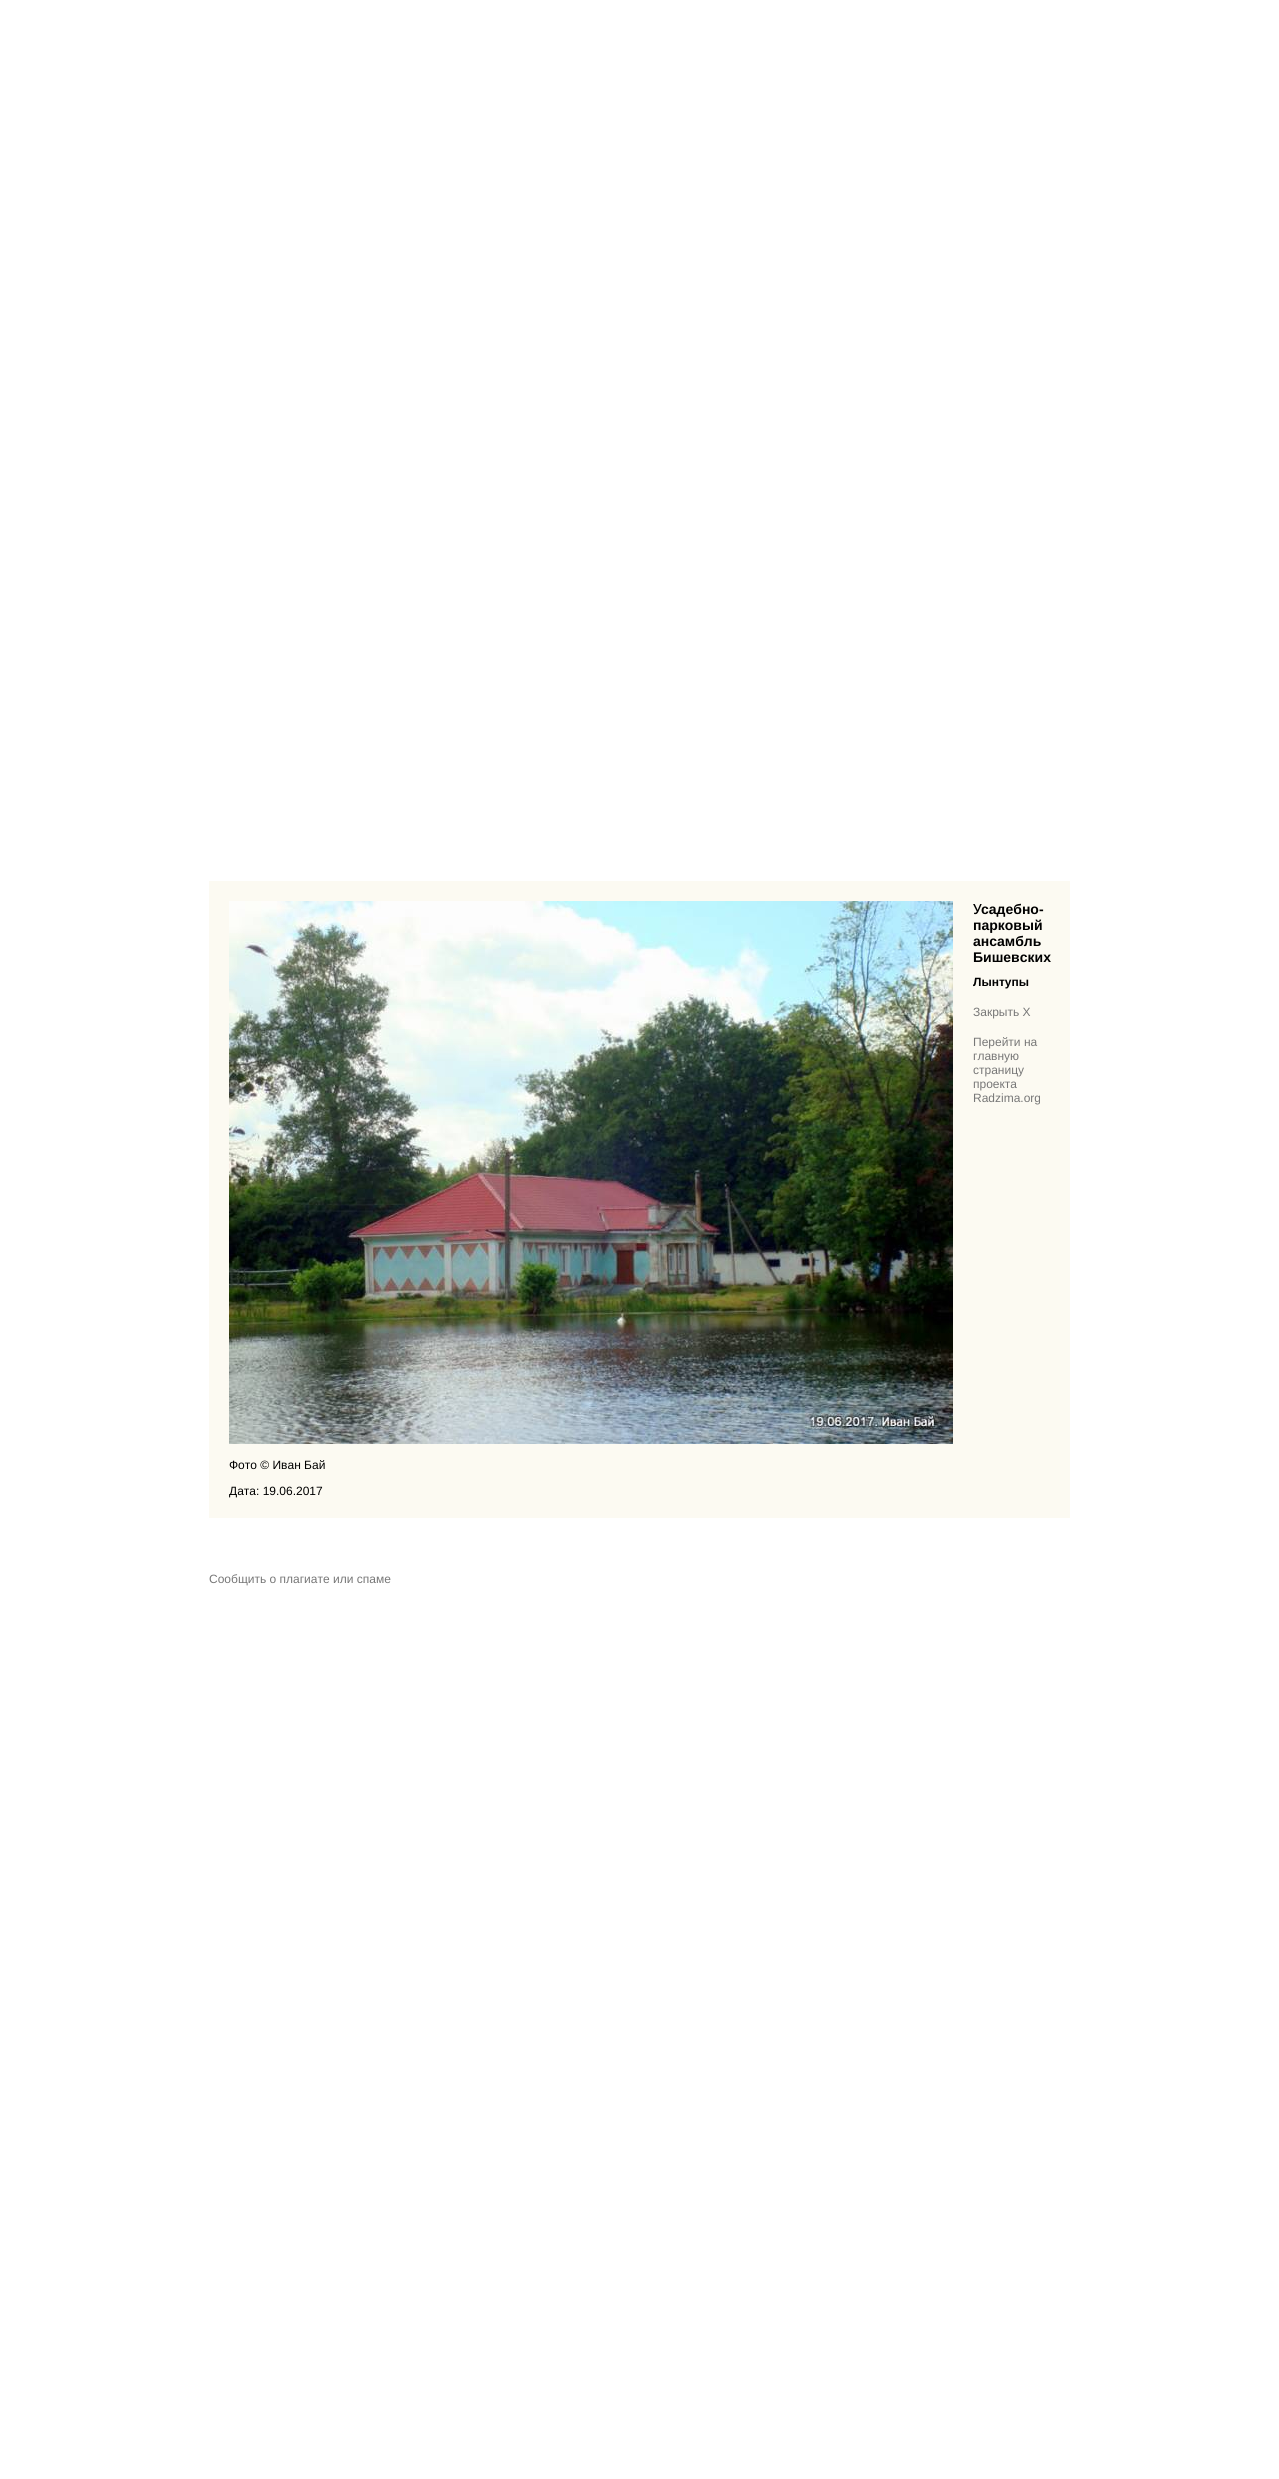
import math
import cairo

surface = cairo.ImageSurface(cairo.FORMAT_RGB24, 1279, 2479)
c = cairo.Context(surface)
options = cairo.FontOptions()
options.set_hint_metrics(cairo.HINT_METRICS_OFF)
options.set_hint_style(cairo.HINT_STYLE_NONE)
c.set_font_options(options)
c.set_miter_limit(4)
def C(code):
 c.set_source_rgb(*(v / 255 for v in bytes.fromhex(code[-6:])))
def F(family, size, italic, bold):
 c.select_font_face(family, cairo.FONT_SLANT_ITALIC if italic else cairo.FONT_SLANT_NORMAL, cairo.FONT_WEIGHT_BOLD if bold else cairo.FONT_WEIGHT_NORMAL)
 c.set_font_size(size)
def T(x, y, s):
 c.move_to(x, y)
 c.show_text(s)
def R(x, y, w, h):
 c.rectangle(x, y, w, h)
 c.fill()
def I(path, x, y, w, h):
 c.save()
 c.set_source_surface(cairo.ImageSurface.create_from_png(path), x, y)
 c.rectangle(x, y, w, h)
 c.fill()
 c.restore()
C('ffffff')
c.paint()
C('fcfaf2')
R(209,881,861,637)
F('Noto Sans Medium',14,0,0)
C('000000')
T(973,914,'У')
F('Liberation Sans',14,0,1)
T(981,914,'садебно-')
T(973,930,'парковый')
T(973,946,'ансамбль')
T(973,962,'Бишевских')
F('Liberation Sans',12,0,1)
T(973,986,'Лынтупы')
F('Liberation Sans',12,0,0)
C('777777')
T(973,1016,'Закрыть X')
T(973,1046,'Перейти на')
T(973,1060,'главную')
T(973,1074,'страницу')
T(973,1088,'проекта')
T(973,1102,'Radzima.org')
I('1.png',229,901,724,543)
C('000000')
T(229,1469,'Фото © Иван Бай')
T(229,1495,'Дата: 19.06.2017')
C('777777')
T(209,1583,'Сообщить о плагиате или спаме')
surface.write_to_png('o.png')
